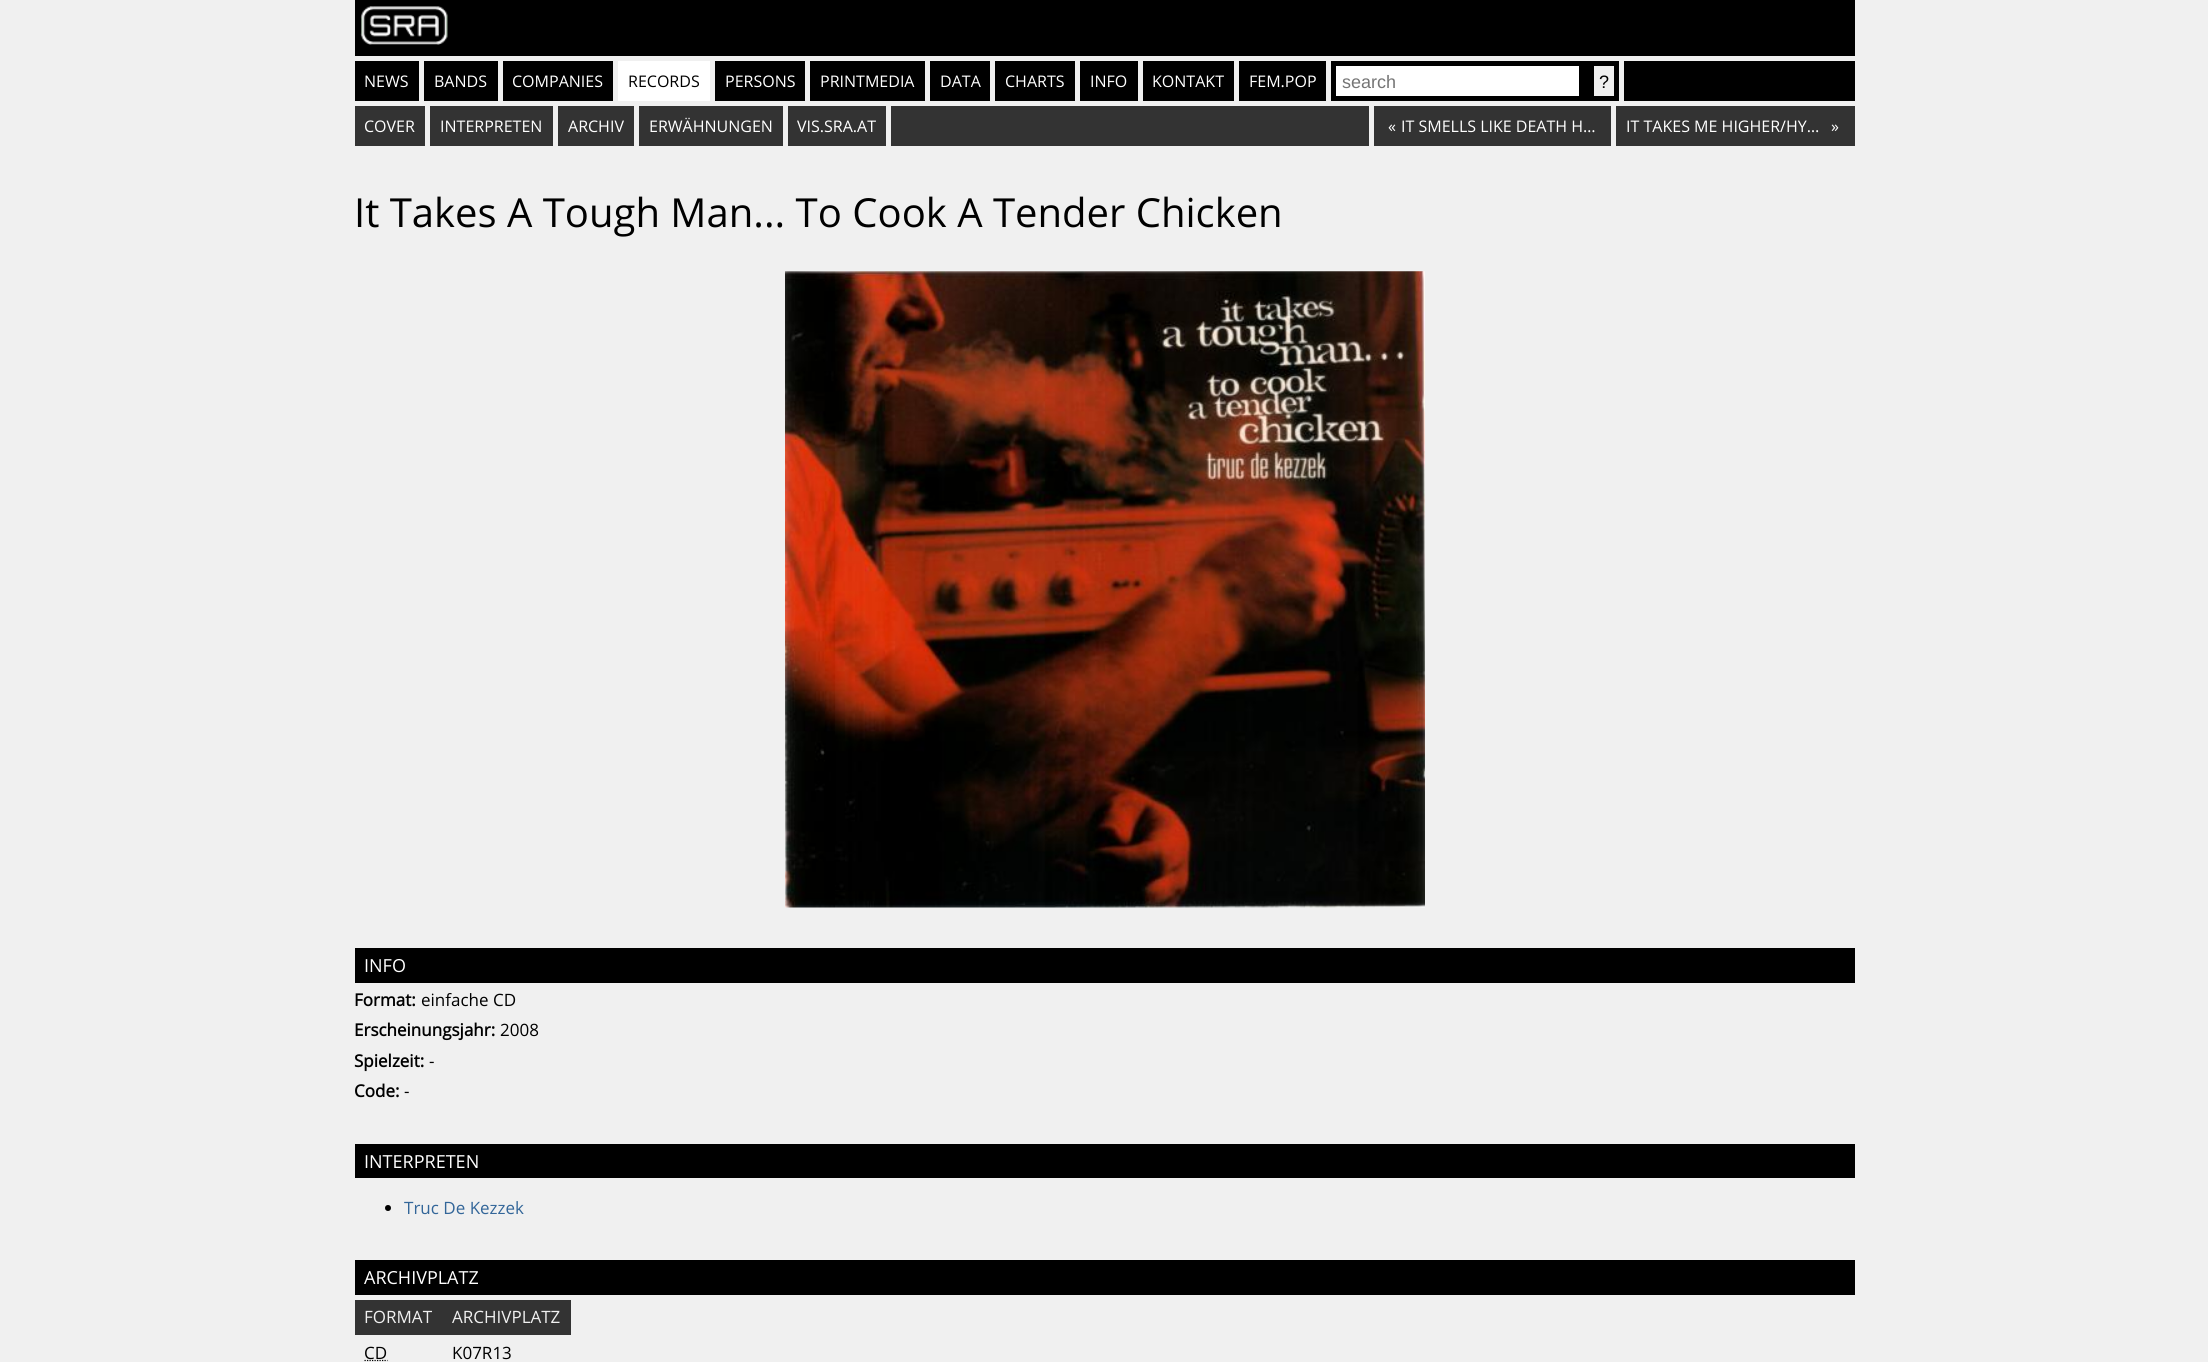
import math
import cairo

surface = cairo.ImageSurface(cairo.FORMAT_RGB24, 2208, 1362)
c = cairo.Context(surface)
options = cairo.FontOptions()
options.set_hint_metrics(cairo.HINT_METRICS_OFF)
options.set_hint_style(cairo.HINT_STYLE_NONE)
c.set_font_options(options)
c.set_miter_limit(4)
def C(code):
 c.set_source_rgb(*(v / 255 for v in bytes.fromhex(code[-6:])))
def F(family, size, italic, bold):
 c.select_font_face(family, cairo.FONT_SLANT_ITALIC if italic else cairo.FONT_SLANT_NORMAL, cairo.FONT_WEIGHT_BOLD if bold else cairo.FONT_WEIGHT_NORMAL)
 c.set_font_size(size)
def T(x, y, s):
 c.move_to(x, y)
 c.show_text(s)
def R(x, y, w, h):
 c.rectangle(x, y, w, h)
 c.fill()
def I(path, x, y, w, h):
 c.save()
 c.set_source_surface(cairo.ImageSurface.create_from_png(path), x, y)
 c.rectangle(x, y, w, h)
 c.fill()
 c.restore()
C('f0f0f0')
c.paint()
C('000000')
R(355,0,1500,56)
I('1.png',360,6,88,39)
R(355,61,64,40)
F('Open Sans',16,0,0)
C('ffffff')
T(364,87,'NEWS')
C('000000')
R(424,61,74,40)
C('ffffff')
T(434,87,'BANDS')
C('000000')
R(503,61,110,40)
C('ffffff')
T(512,87,'COMPANIES')
R(618,61,92,40)
C('000000')
T(628,87,'RECORDS')
R(715,61,90,40)
C('ffffff')
T(725,87,'PERSONS')
C('000000')
R(810,61,115,40)
C('ffffff')
T(820,87,'PRINTMEDIA')
C('000000')
R(930,61,60,40)
C('ffffff')
T(940,87,'DATA')
C('000000')
R(995,61,80,40)
C('ffffff')
T(1005,87,'CHARTS')
C('000000')
R(1080,61,58,40)
C('ffffff')
T(1090,87,'INFO')
C('000000')
R(1143,61,91,40)
C('ffffff')
T(1152,87,'KONTAKT')
C('000000')
R(1239,61,87,40)
C('ffffff')
T(1249,87,'FEM.POP')
C('000000')
R(1331,61,288,40)
C('ffffff')
R(1336,66,243,30)
F('Liberation Sans',18,0,0)
C('757575')
T(1342,88,'search')
C('efefef')
R(1594,66,20,30)
C('000000')
T(1599,88,'?')
R(1624,61,231,40)
C('333333')
R(355,106,70,40)
F('Open Sans',16,0,0)
C('ffffff')
T(364,132,'COVER')
C('333333')
R(430,106,123,40)
C('ffffff')
T(440,132,'INTERPRETEN')
C('333333')
R(558,106,76,40)
C('ffffff')
T(568,132,'ARCHIV')
C('333333')
R(639,106,144,40)
C('ffffff')
T(649,132,'ERWÄHNUNGEN')
C('333333')
R(788,106,98,40)
C('ffffff')
T(797,132,'VIS.SRA.AT')
C('333333')
R(891,106,478,40)
R(1374,106,237,40)
C('ffffff')
T(1388,132,'«')
T(1401,132,'IT SMELLS LIKE DEATH H…')
C('333333')
R(1616,106,239,40)
C('ffffff')
T(1626,132,'IT TAKES ME HIGHER/HY…')
T(1831,132,'»')
F('Open Sans',40,0,0)
C('000000')
T(354,227,'It Takes A Tough Man... To Cook A Tender Chicken')
I('2.png',785,271,640,637)
R(355,948,1500,35)
F('Open Sans',18,0,0)
C('ffffff')
T(364,972,'INFO')
F('Open Sans',17,0,1)
C('000000')
T(354,1006,'Format:')
F('Open Sans',17,0,0)
T(421,1006,'einfache CD')
F('Open Sans',17,0,1)
T(354,1036,'Erscheinungsjahr:')
F('Open Sans',17,0,0)
T(500,1036,'2008')
F('Open Sans',17,0,1)
T(354,1067,'Spielzeit:')
F('Open Sans',17,0,0)
T(429,1067,'-')
F('Open Sans',17,0,1)
T(354,1097,'Code:')
F('Open Sans',17,0,0)
T(404,1097,'-')
R(355,1144,1500,34)
F('Open Sans',18,0,0)
C('ffffff')
T(364,1168,'INTERPRETEN')
C('000000')
c.new_path()
c.arc(388,1208,3,0,2 * math.pi)
c.fill()
F('Open Sans',17,0,0)
C('336699')
T(404,1214,'Truc De Kezzek')
C('000000')
R(355,1260,1500,35)
F('Open Sans',18,0,0)
C('ffffff')
T(364,1284,'ARCHIVPLATZ')
C('333333')
R(355,1300,216,35)
F('Open Sans',17,0,0)
C('f0f0f0')
T(364,1323,'FORMAT')
T(452,1323,'ARCHIVPLATZ')
c.new_path()
c.move_to(364.5,1360.5)
c.line_to(387.5,1360.5)
C('000000')
c.set_line_width(1.2)
c.set_dash([1.25,1.25])
c.stroke()
T(364,1359,'CD')
T(452,1359,'K07R13')
surface.write_to_png('o.png')
